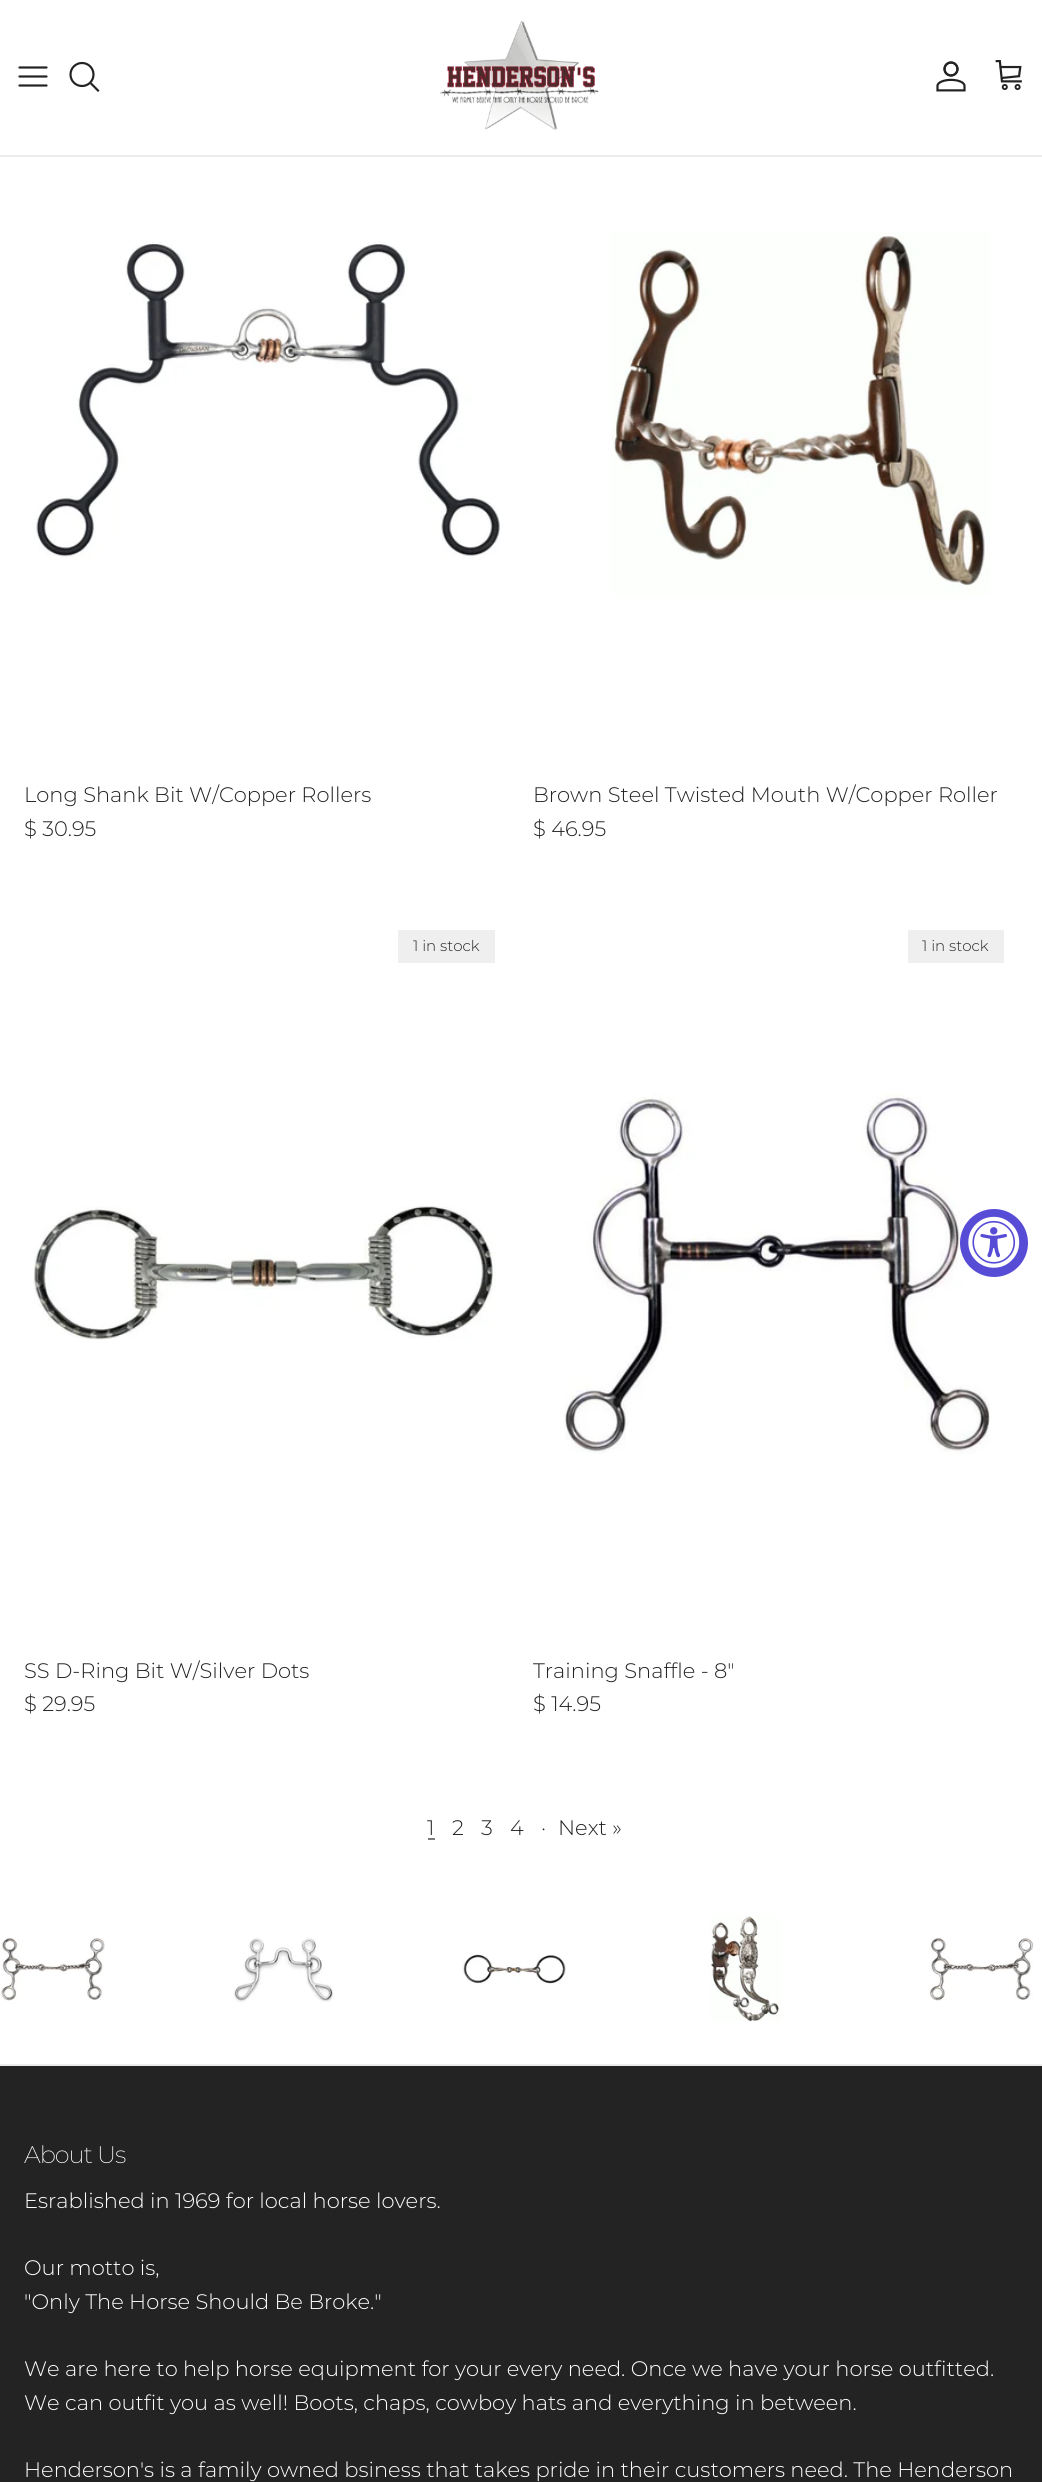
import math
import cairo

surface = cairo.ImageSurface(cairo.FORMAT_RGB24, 1042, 2482)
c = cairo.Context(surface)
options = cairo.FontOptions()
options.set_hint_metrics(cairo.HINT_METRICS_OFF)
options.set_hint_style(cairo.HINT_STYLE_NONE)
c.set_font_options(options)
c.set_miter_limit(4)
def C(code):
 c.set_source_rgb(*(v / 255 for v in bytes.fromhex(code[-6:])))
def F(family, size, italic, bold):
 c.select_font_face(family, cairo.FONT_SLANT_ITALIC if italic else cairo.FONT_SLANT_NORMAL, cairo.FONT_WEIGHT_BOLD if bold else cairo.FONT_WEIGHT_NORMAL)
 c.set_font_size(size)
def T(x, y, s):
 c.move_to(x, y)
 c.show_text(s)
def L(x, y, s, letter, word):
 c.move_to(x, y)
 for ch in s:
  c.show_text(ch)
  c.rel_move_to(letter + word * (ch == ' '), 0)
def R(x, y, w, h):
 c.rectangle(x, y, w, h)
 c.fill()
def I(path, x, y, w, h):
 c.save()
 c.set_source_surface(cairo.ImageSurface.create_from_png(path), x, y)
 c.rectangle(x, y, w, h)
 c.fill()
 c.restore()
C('ffffff')
c.paint()
C('ececec')
R(0,155,1042,2)
c.new_path()
c.move_to(19.5,76.5)
c.line_to(46.5,76.5)
c.move_to(19.5,67.5)
c.line_to(46.5,67.5)
c.move_to(19.5,85.5)
c.line_to(46.5,85.5)
C('232323')
c.set_line_width(2.2)
c.set_line_cap(cairo.LINE_CAP_ROUND)
c.set_line_join(cairo.LINE_JOIN_ROUND)
c.stroke()
c.arc(82,74.5,11.5,0,2 * math.pi)
c.set_line_cap(cairo.LINE_CAP_BUTT)
c.set_line_join(cairo.LINE_JOIN_MITER)
c.stroke()
c.new_path()
c.move_to(91.5,84)
c.line_to(98,90.5)
c.set_line_cap(cairo.LINE_CAP_SQUARE)
c.stroke()
I('1.png',440,21,159,109)
I('2.png',936,61,30,31)
I('3.png',995,60,27,30)
I('4.png',33,241,467,318)
F('Montserrat Light',21,0,0)
T(24,802,'Long Shank Bit W/Copper Rollers')
T(24,836,'$ 30.95')
I('5.png',611,232,379,364)
T(533,802,'Brown Steel Twisted Mouth W/Copper Roller')
T(533,836,'$ 46.95')
C('efefef')
R(398,930,97,33)
F('Montserrat Light',15,0,0)
C('232323')
T(413,951,'1 in stock')
I('6.png',33,1206,463,134)
F('Montserrat Light',21,0,0)
T(24,1678,'SS D-Ring Bit W/Silver Dots')
T(24,1711,'$ 29.95')
C('efefef')
R(908,930,96,33)
F('Montserrat Light',15,0,0)
C('232323')
T(922,951,'1 in stock')
I('7.png',564,1093,426,361)
F('Montserrat Light',21,0,0)
T(533,1678,'Training Snaffle - 8"')
T(533,1711,'$ 14.95')
T(427,1835,'1')
C('7b7b7b')
R(428,1838,7,2)
C('232323')
T(452,1835,'2')
T(481,1835,'3')
T(510,1835,'4')
T(541,1835,'·')
T(558,1835,'Next »')
C('574cd5')
c.new_path()
c.arc(994,1243,34,0,2 * math.pi)
c.fill()
I('8.png',968,1216,52,52)
I('9.png',0,1937,105,64)
I('10.png',233,1938,102,65)
I('11.png',462,1954,104,30)
I('12.png',710,1916,71,106)
I('13.png',928,1937,106,64)
C('232323')
R(0,2066,1042,416)
C('ececec')
R(0,2064,1042,2)
F('Montserrat ExtraLight',24,0,0)
C('ffffff')
L(24,2163,'About Us',-1,0)
F('Montserrat Light',21,0,0)
T(24,2208,'Esrablished in 1969 for local horse lovers.')
T(24,2275,'Our motto is,')
T(24,2309,'"Only The Horse Should Be Broke."')
T(24,2376,'We are here to help horse equipment for your every need. Once we have your horse outfitted.')
T(24,2410,'We can outfit you as well! Boots, chaps, cowboy hats and everything in between.')
T(24,2477,'Henderson\'s is a family owned bsiness that takes pride in their customers need. The Henderson')
surface.write_to_png('o.png')
